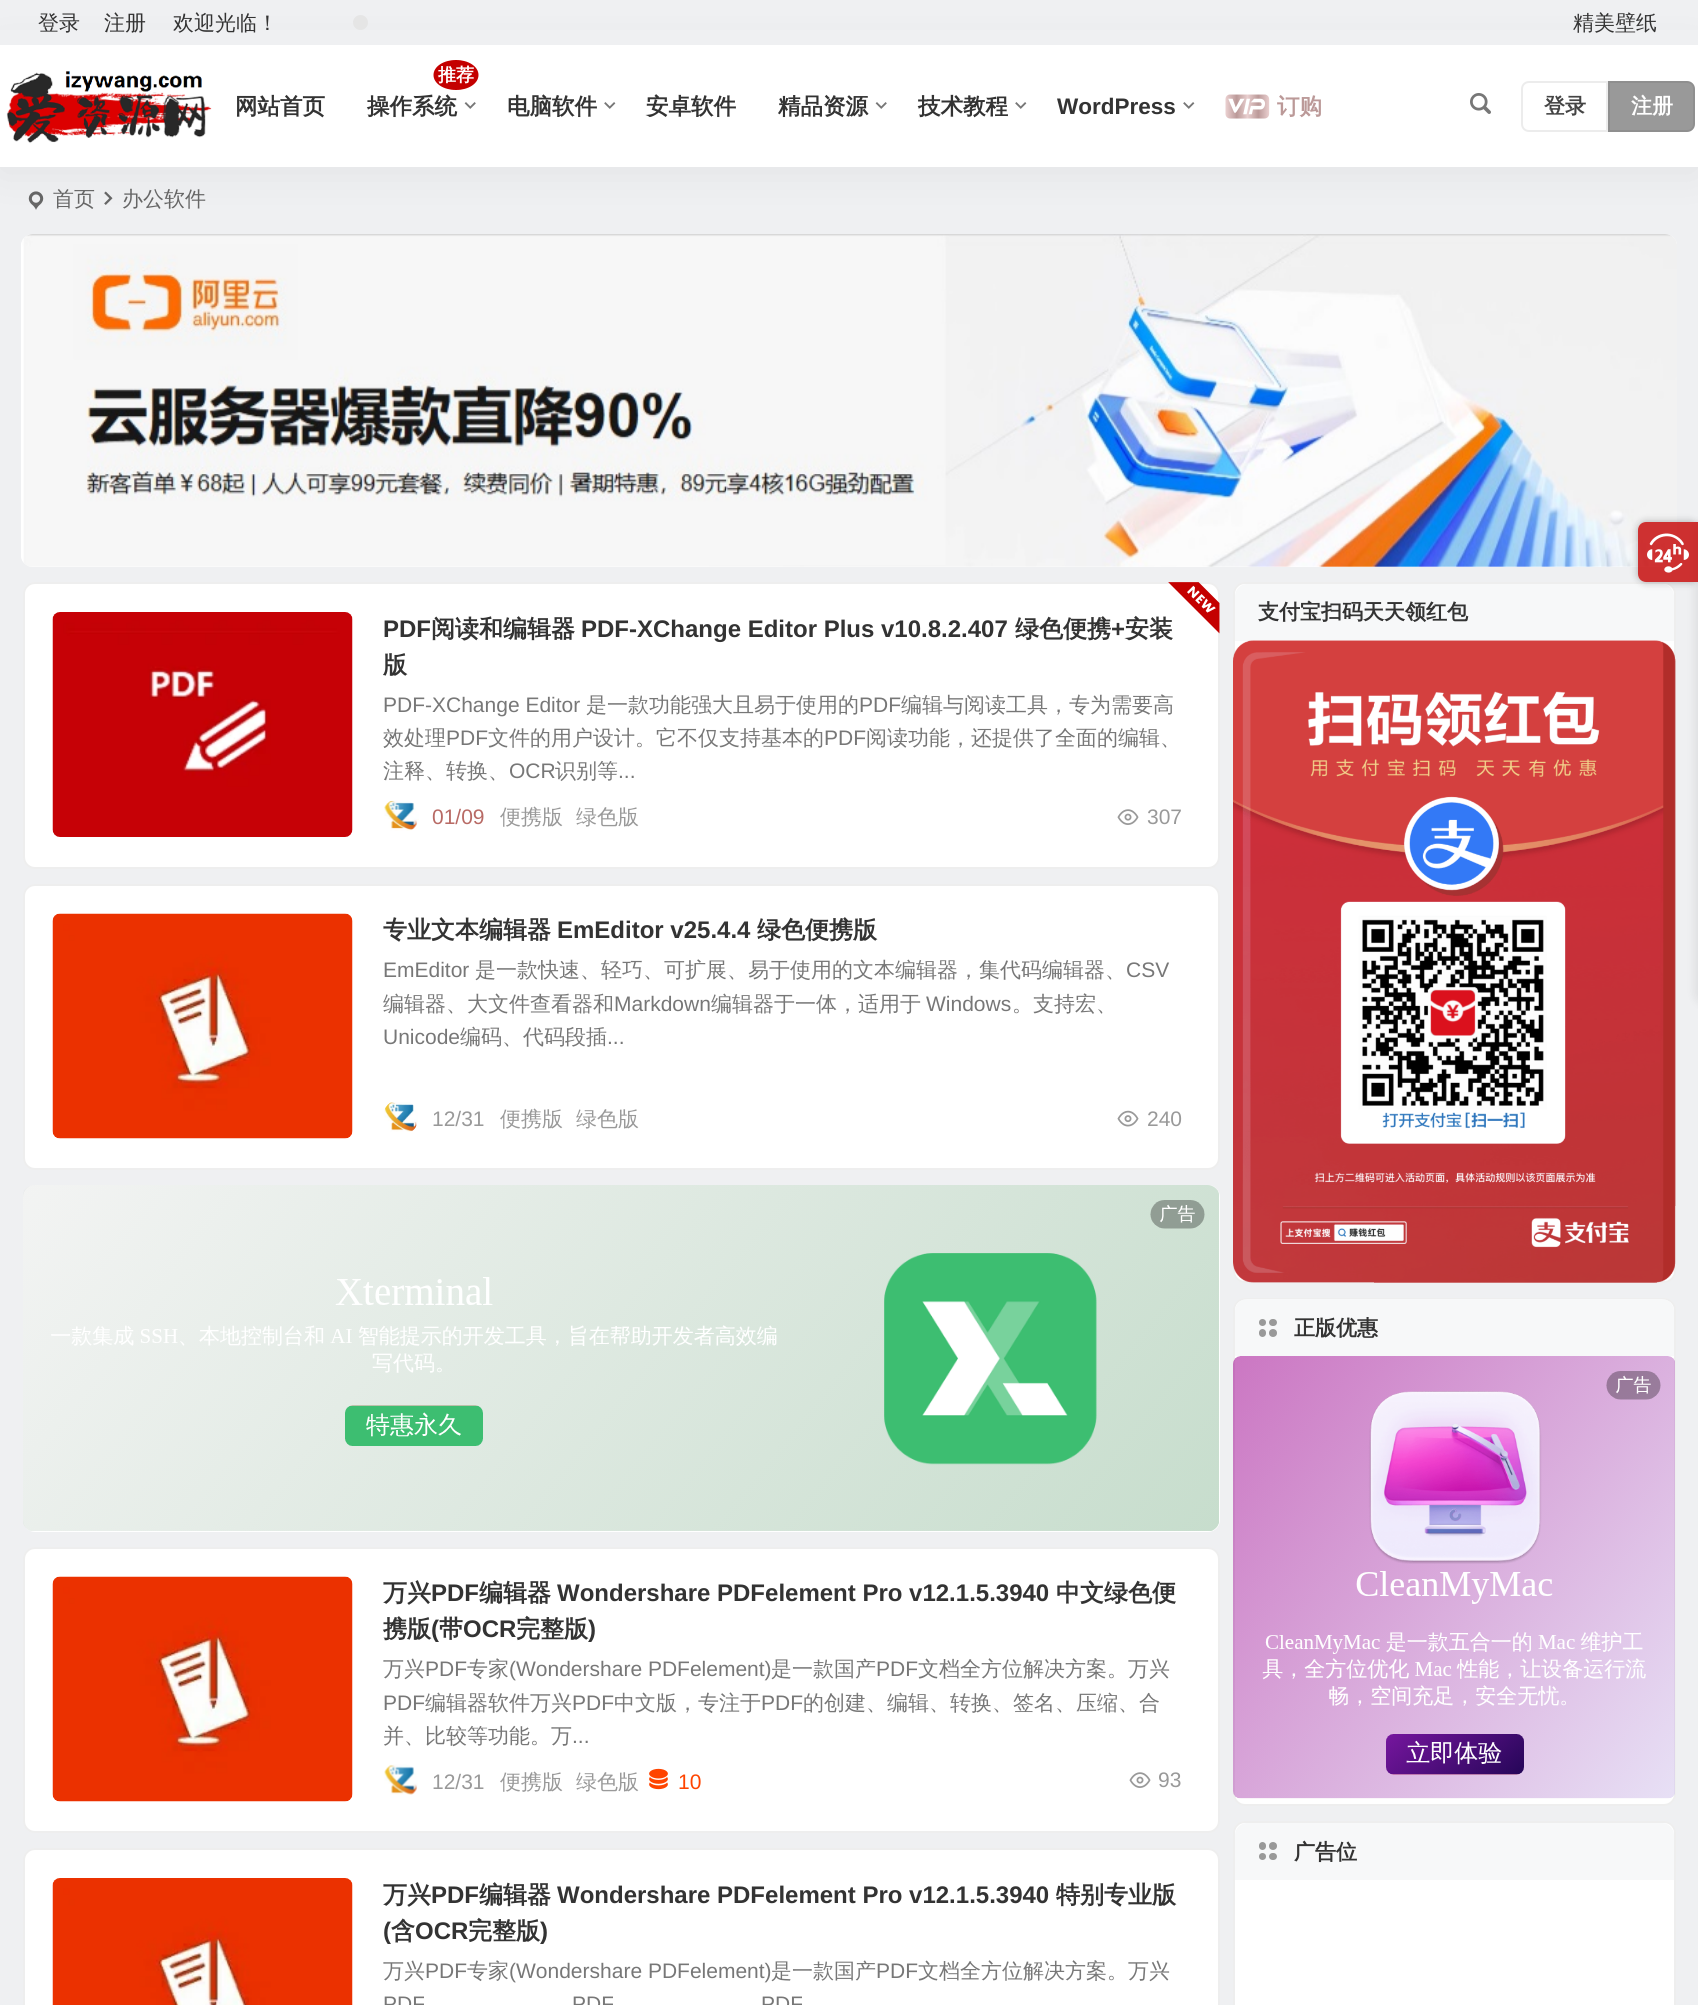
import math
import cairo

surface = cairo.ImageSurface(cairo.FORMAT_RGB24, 1698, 2005)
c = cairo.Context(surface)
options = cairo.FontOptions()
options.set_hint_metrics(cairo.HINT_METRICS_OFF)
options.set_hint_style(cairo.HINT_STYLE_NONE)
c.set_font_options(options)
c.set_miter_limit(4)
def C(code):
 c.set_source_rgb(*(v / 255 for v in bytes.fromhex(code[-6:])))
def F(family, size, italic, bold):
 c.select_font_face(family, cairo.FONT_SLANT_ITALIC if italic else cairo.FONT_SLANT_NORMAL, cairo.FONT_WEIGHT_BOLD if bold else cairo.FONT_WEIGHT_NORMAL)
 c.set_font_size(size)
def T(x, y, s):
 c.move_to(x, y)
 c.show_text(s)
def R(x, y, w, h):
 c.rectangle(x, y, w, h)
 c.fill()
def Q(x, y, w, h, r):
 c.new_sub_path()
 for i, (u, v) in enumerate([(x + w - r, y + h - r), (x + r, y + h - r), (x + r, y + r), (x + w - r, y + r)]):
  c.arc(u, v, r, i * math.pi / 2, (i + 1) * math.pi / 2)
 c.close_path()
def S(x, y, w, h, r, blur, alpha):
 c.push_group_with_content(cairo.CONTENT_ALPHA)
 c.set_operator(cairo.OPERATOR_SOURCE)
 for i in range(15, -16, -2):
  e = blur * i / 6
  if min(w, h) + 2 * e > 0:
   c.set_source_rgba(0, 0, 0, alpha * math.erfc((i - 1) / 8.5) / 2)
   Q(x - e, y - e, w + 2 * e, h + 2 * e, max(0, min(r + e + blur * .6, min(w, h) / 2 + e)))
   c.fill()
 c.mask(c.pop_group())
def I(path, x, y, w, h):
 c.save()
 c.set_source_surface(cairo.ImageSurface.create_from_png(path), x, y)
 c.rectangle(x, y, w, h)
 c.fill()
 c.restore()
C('eff0f2')
c.paint()
I('6.png',28,191,16,19)
I('7.png',104,191,9,14)
C('ffffff')
Q(21,234,1656,333,12)
c.fill()
I('8.png',21,234,1656,333)
C('000000')
S(0,50,1698,121,0,22.5,.06)
C('eff0f2')
R(0,30,1698,15)
F('WenQuanYi Zen Hei Medium',21,0,0)
C('333333')
T(38,30,'登录')
T(104,30,'注册')
T(173,30,'欢迎光临！')
C('e5e5e5')
c.new_path()
c.arc(360.5,22.5,7.5,0,2 * math.pi)
c.fill()
C('333333')
T(1573,30,'精美壁纸')
C('ffffff')
R(0,45,1698,122)
I('1.png',6,71,206,73)
F('WenQuanYi Zen Hei',22.5,0,1)
C('333333')
T(235,114,'网站首页')
C('c40000')
c.new_path()
c.move_to(456,60)
c.curve_to(468.5,60,478.5,66.5,478.5,75)
c.curve_to(478.5,83.5,468.5,90,456,90)
c.curve_to(443.5,90,433.5,83.5,433.5,75)
c.curve_to(433.5,66.5,443.5,60,456,60)
c.close_path()
c.fill()
F('WenQuanYi Zen Hei',18,0,1)
C('ffffff')
T(438,81,'推荐')
F('WenQuanYi Zen Hei',22.5,0,1)
C('333333')
T(367,114,'操作系统')
I('2.png',464,102,12,7)
T(507,114,'电脑软件')
I('3.png',604,102,12,7)
T(646,114,'安卓软件')
T(778,114,'精品资源')
I('2.png',875,102,12,7)
T(918,114,'技术教程')
I('3.png',1015,102,12,7)
F('Liberation Sans',22.5,0,1)
T(1057,114,'WordPress')
I('3.png',1183,102,12,7)
I('4.png',1225,94,45,25)
F('WenQuanYi Zen Hei',22.5,0,1)
C('bb9998')
T(1277,114,'订购')
I('5.png',1470,93,21,21)
c.new_path()
c.move_to(1529,82)
c.line_to(1607,82)
c.line_to(1607,131)
c.line_to(1529,131)
c.curve_to(1525,131,1522,128,1522,124)
c.line_to(1522,89)
c.curve_to(1522,85,1525,82,1529,82)
c.close_path()
C('ececec')
c.stroke()
F('WenQuanYi Zen Hei',21,0,1)
C('444444')
T(1544,113,'登录')
C('999999')
c.new_path()
c.move_to(1608,81)
c.line_to(1687,81)
c.curve_to(1691.5,81,1695,84.5,1695,89)
c.line_to(1695,124)
c.curve_to(1695,128.5,1691.5,132,1687,132)
c.line_to(1608,132)
c.close_path()
c.fill()
c.new_path()
c.move_to(1609,82)
c.line_to(1687,82)
c.curve_to(1691,82,1694,85,1694,89)
c.line_to(1694,124)
c.curve_to(1694,128,1691,131,1687,131)
c.line_to(1609,131)
c.close_path()
c.set_source_rgba(0,0,0,0.07)
c.stroke()
C('ffffff')
T(1631,113,'注册')
F('WenQuanYi Zen Hei Medium',21,0,0)
C('666666')
T(53,206,'首页')
T(122,206,'办公软件')
C('ffffff')
Q(23,582,1197,287,12)
c.fill()
Q(24,583,1195,285,11)
c.set_source_rgba(0,0,0,0.07)
c.stroke()
I('9.png',52,612,301,225)
F('Liberation Sans',24,0,1)
C('333333')
T(383,637,'PDF')
F('WenQuanYi Zen Hei',24,0,1)
T(431,637,'阅读和编辑器')
F('Liberation Sans',24,0,1)
T(581,637,'PDF-XChange Editor Plus v10.8.2.407')
F('WenQuanYi Zen Hei',24,0,1)
T(1015,637,'绿色便携')
F('Liberation Sans',24,0,1)
T(1111,637,'+')
I('12.png',1168,582,52,52)
F('WenQuanYi Zen Hei',24,0,1)
T(1125,637,'安装')
T(383,673,'版')
F('Liberation Sans',21,0,0)
C('777777')
T(383,712,'PDF-XChange Editor')
F('WenQuanYi Zen Hei Medium',21,0,0)
T(586,712,'是一款功能强大且易于使用的')
F('Liberation Sans',21,0,0)
T(859,712,'PDF')
F('WenQuanYi Zen Hei Medium',21,0,0)
T(901,712,'编辑与阅读工具，专为需要高')
T(383,745,'效处理')
F('Liberation Sans',21,0,0)
T(446,745,'PDF')
F('WenQuanYi Zen Hei Medium',21,0,0)
T(488,745,'文件的用户设计。它不仅支持基本的')
F('Liberation Sans',21,0,0)
T(824,745,'PDF')
F('WenQuanYi Zen Hei Medium',21,0,0)
T(866,745,'阅读功能，还提供了全面的编辑、')
T(383,778,'注释、转换、')
F('Liberation Sans',21,0,0)
T(509,778,'OCR')
F('WenQuanYi Zen Hei Medium',21,0,0)
T(555,778,'识别等')
F('Liberation Sans',21,0,0)
T(618,778,'...')
I('10.png',384,800,35,31)
C('b86a65')
T(432,824,'01/09')
F('WenQuanYi Zen Hei Medium',21,0,0)
C('999999')
T(500,824,'便携版')
T(576,824,'绿色版')
I('11.png',1117,809,22,16)
F('Liberation Sans',21,0,0)
T(1147,824,'307')
C('ffffff')
Q(23,884,1197,286,12)
c.fill()
Q(24,885,1195,284,11)
c.set_source_rgba(0,0,0,0.07)
c.stroke()
I('13.png',52,913,301,226)
F('WenQuanYi Zen Hei',24,0,1)
C('333333')
T(383,938,'专业文本编辑器')
F('Liberation Sans',24,0,1)
T(557,938,'EmEditor v25.4.4')
F('WenQuanYi Zen Hei',24,0,1)
T(757,938,'绿色便携版')
F('Liberation Sans',21,0,0)
C('777777')
T(383,977,'EmEditor')
F('WenQuanYi Zen Hei Medium',21,0,0)
T(475,977,'是一款快速、轻巧、可扩展、易于使用的文本编辑器，集代码编辑器、')
F('Liberation Sans',21,0,0)
T(1126,977,'CSV')
F('WenQuanYi Zen Hei Medium',21,0,0)
T(383,1011,'编辑器、大文件查看器和')
F('Liberation Sans',21,0,0)
T(614,1011,'Markdown')
F('WenQuanYi Zen Hei Medium',21,0,0)
T(711,1011,'编辑器于一体，适用于')
F('Liberation Sans',21,0,0)
T(926,1011,'Windows')
F('WenQuanYi Zen Hei Medium',21,0,0)
T(1012,1011,'。支持宏、')
F('Liberation Sans',21,0,0)
T(383,1044,'Unicode')
F('WenQuanYi Zen Hei Medium',21,0,0)
T(460,1044,'编码、代码段插')
F('Liberation Sans',21,0,0)
T(607,1044,'...')
I('14.png',384,1102,34,30)
C('999999')
T(432,1126,'12/31')
F('WenQuanYi Zen Hei Medium',21,0,0)
T(500,1126,'便携版')
T(576,1126,'绿色版')
I('15.png',1117,1110,22,17)
F('Liberation Sans',21,0,0)
T(1147,1126,'240')
C('ffffff')
Q(23,1185,1197,347,12)
c.fill()
I('16.png',23,1185,1196,346)
Q(23,1547,1197,286,12)
c.fill()
Q(24,1548,1195,284,11)
c.set_source_rgba(0,0,0,0.07)
c.stroke()
I('13.png',52,1576,301,226)
F('WenQuanYi Zen Hei',24,0,1)
C('333333')
T(383,1601,'万兴')
F('Liberation Sans',24,0,1)
T(431,1601,'PDF')
F('WenQuanYi Zen Hei',24,0,1)
T(479,1601,'编辑器')
F('Liberation Sans',24,0,1)
T(557,1601,'Wondershare PDFelement Pro v12.1.5.3940')
F('WenQuanYi Zen Hei',24,0,1)
T(1056,1601,'中文绿色便')
T(383,1637,'携版')
F('Liberation Sans',24,0,1)
T(431,1637,'(')
F('WenQuanYi Zen Hei',24,0,1)
T(439,1637,'带')
F('Liberation Sans',24,0,1)
T(463,1637,'OCR')
F('WenQuanYi Zen Hei',24,0,1)
T(516,1637,'完整版')
F('Liberation Sans',24,0,1)
T(588,1637,')')
F('WenQuanYi Zen Hei Medium',21,0,0)
C('777777')
T(383,1676,'万兴')
F('Liberation Sans',21,0,0)
T(425,1676,'PDF')
F('WenQuanYi Zen Hei Medium',21,0,0)
T(467,1676,'专家')
F('Liberation Sans',21,0,0)
T(509,1676,'(Wondershare PDFelement)')
F('WenQuanYi Zen Hei Medium',21,0,0)
T(771,1676,'是一款国产')
F('Liberation Sans',21,0,0)
T(876,1676,'PDF')
F('WenQuanYi Zen Hei Medium',21,0,0)
T(918,1676,'文档全方位解决方案。万兴')
F('Liberation Sans',21,0,0)
T(383,1710,'PDF')
F('WenQuanYi Zen Hei Medium',21,0,0)
T(425,1710,'编辑器软件万兴')
F('Liberation Sans',21,0,0)
T(572,1710,'PDF')
F('WenQuanYi Zen Hei Medium',21,0,0)
T(614,1710,'中文版，专注于')
F('Liberation Sans',21,0,0)
T(761,1710,'PDF')
F('WenQuanYi Zen Hei Medium',21,0,0)
T(803,1710,'的创建、编辑、转换、签名、压缩、合')
T(383,1743,'并、比较等功能。万')
F('Liberation Sans',21,0,0)
T(572,1743,'...')
I('17.png',384,1764,34,31)
C('999999')
T(432,1789,'12/31')
F('WenQuanYi Zen Hei Medium',21,0,0)
T(500,1789,'便携版')
T(576,1789,'绿色版')
I('18.png',649,1768,19,22)
F('Liberation Sans',21,0,0)
C('ff4400')
T(678,1789,'10')
I('11.png',1129,1772,22,16)
C('999999')
T(1158,1787,'93')
C('ffffff')
Q(23,1848,1197,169,12)
c.fill()
Q(24,1849,1195,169,11)
c.set_source_rgba(0,0,0,0.07)
c.stroke()
I('19.png',52,1878,301,127)
F('WenQuanYi Zen Hei',24,0,1)
C('333333')
T(383,1903,'万兴')
F('Liberation Sans',24,0,1)
T(431,1903,'PDF')
F('WenQuanYi Zen Hei',24,0,1)
T(479,1903,'编辑器')
F('Liberation Sans',24,0,1)
T(557,1903,'Wondershare PDFelement Pro v12.1.5.3940')
F('WenQuanYi Zen Hei',24,0,1)
T(1056,1903,'特别专业版')
F('Liberation Sans',24,0,1)
T(383,1939,'(')
F('WenQuanYi Zen Hei',24,0,1)
T(391,1939,'含')
F('Liberation Sans',24,0,1)
T(415,1939,'OCR')
F('WenQuanYi Zen Hei',24,0,1)
T(468,1939,'完整版')
F('Liberation Sans',24,0,1)
T(540,1939,')')
F('WenQuanYi Zen Hei Medium',21,0,0)
C('777777')
T(383,1978,'万兴')
F('Liberation Sans',21,0,0)
T(425,1978,'PDF')
F('WenQuanYi Zen Hei Medium',21,0,0)
T(467,1978,'专家')
F('Liberation Sans',21,0,0)
T(509,1978,'(Wondershare PDFelement)')
F('WenQuanYi Zen Hei Medium',21,0,0)
T(771,1978,'是一款国产')
F('Liberation Sans',21,0,0)
T(876,1978,'PDF')
F('WenQuanYi Zen Hei Medium',21,0,0)
T(918,1978,'文档全方位解决方案。万兴')
F('Liberation Sans',21,0,0)
T(383,2011,'PDF')
T(572,2011,'PDF')
T(761,2011,'PDF')
C('ffffff')
Q(1233,582,443,701,12)
c.fill()
Q(1234,583,441,699,11)
c.set_source_rgba(0,0,0,0.07)
c.stroke()
C('f7f8f9')
c.new_path()
c.move_to(1247,584)
c.line_to(1662,584)
c.curve_to(1668.5,584,1674,589.5,1674,596)
c.line_to(1674,641)
c.line_to(1235,641)
c.line_to(1235,596)
c.curve_to(1235,589.5,1240.5,584,1247,584)
c.close_path()
c.fill()
F('WenQuanYi Zen Hei',21,0,1)
C('333333')
T(1258,619,'支付宝扫码天天领红包')
I('20.png',1233,640,443,643)
C('ffffff')
Q(1233,1298,443,508,12)
c.fill()
Q(1234,1299,441,506,11)
c.set_source_rgba(0,0,0,0.07)
c.stroke()
C('f7f8f9')
c.new_path()
c.move_to(1247,1299)
c.line_to(1662,1299)
c.curve_to(1668.5,1299,1674,1304.5,1674,1311)
c.line_to(1674,1356)
c.line_to(1235,1356)
c.line_to(1235,1311)
c.curve_to(1235,1304.5,1240.5,1299,1247,1299)
c.close_path()
c.fill()
C('999999')
c.arc(1262.5,1322.5,3.5,0,2 * math.pi)
c.fill()
Q(1269,1319,8,7,3.5)
c.fill()
Q(1259,1329,7,8,3.5)
c.fill()
c.arc(1273,1333,4,0,2 * math.pi)
c.fill()
C('333333')
T(1294,1335,'正版优惠')
I('21.png',1233,1356,442,443)
C('ffffff')
Q(1233,1821,443,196,12)
c.fill()
Q(1234,1822,441,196,11)
c.set_source_rgba(0,0,0,0.07)
c.stroke()
C('f7f8f9')
c.new_path()
c.move_to(1247,1823)
c.line_to(1662,1823)
c.curve_to(1668.5,1823,1674,1828.5,1674,1835)
c.line_to(1674,1880)
c.line_to(1235,1880)
c.line_to(1235,1835)
c.curve_to(1235,1828.5,1240.5,1823,1247,1823)
c.close_path()
c.fill()
C('999999')
Q(1259,1842,7,8,3.5)
c.fill()
c.arc(1273,1846,4,0,2 * math.pi)
c.fill()
c.arc(1262.5,1856.5,3.5,0,2 * math.pi)
c.fill()
Q(1269,1853,8,7,3.5)
c.fill()
C('333333')
T(1294,1859,'广告位')
C('000000')
S(1694,518,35,489,17,4.5,.07)
c.save()
c.set_fill_rule(cairo.FILL_RULE_EVEN_ODD)
c.new_path()
c.move_to(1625,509)
c.line_to(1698,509)
c.line_to(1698,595)
c.line_to(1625,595)
c.close_path()
c.move_to(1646,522)
c.line_to(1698,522)
c.line_to(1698,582)
c.line_to(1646,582)
c.curve_to(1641.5,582,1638,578.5,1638,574)
c.line_to(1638,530)
c.curve_to(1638,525.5,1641.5,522,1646,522)
c.close_path()
c.clip()
S(1638,522,60,60,8,4,.3)
c.restore()
c.set_source_rgba(0.769,0,0,0.8)
c.new_path()
c.move_to(1646,522)
c.line_to(1698,522)
c.line_to(1698,582)
c.line_to(1646,582)
c.curve_to(1641.5,582,1638,578.5,1638,574)
c.line_to(1638,530)
c.curve_to(1638,525.5,1641.5,522,1646,522)
c.close_path()
c.fill()
I('22.png',1647,533,42,40)
surface.write_to_png('o.png')
